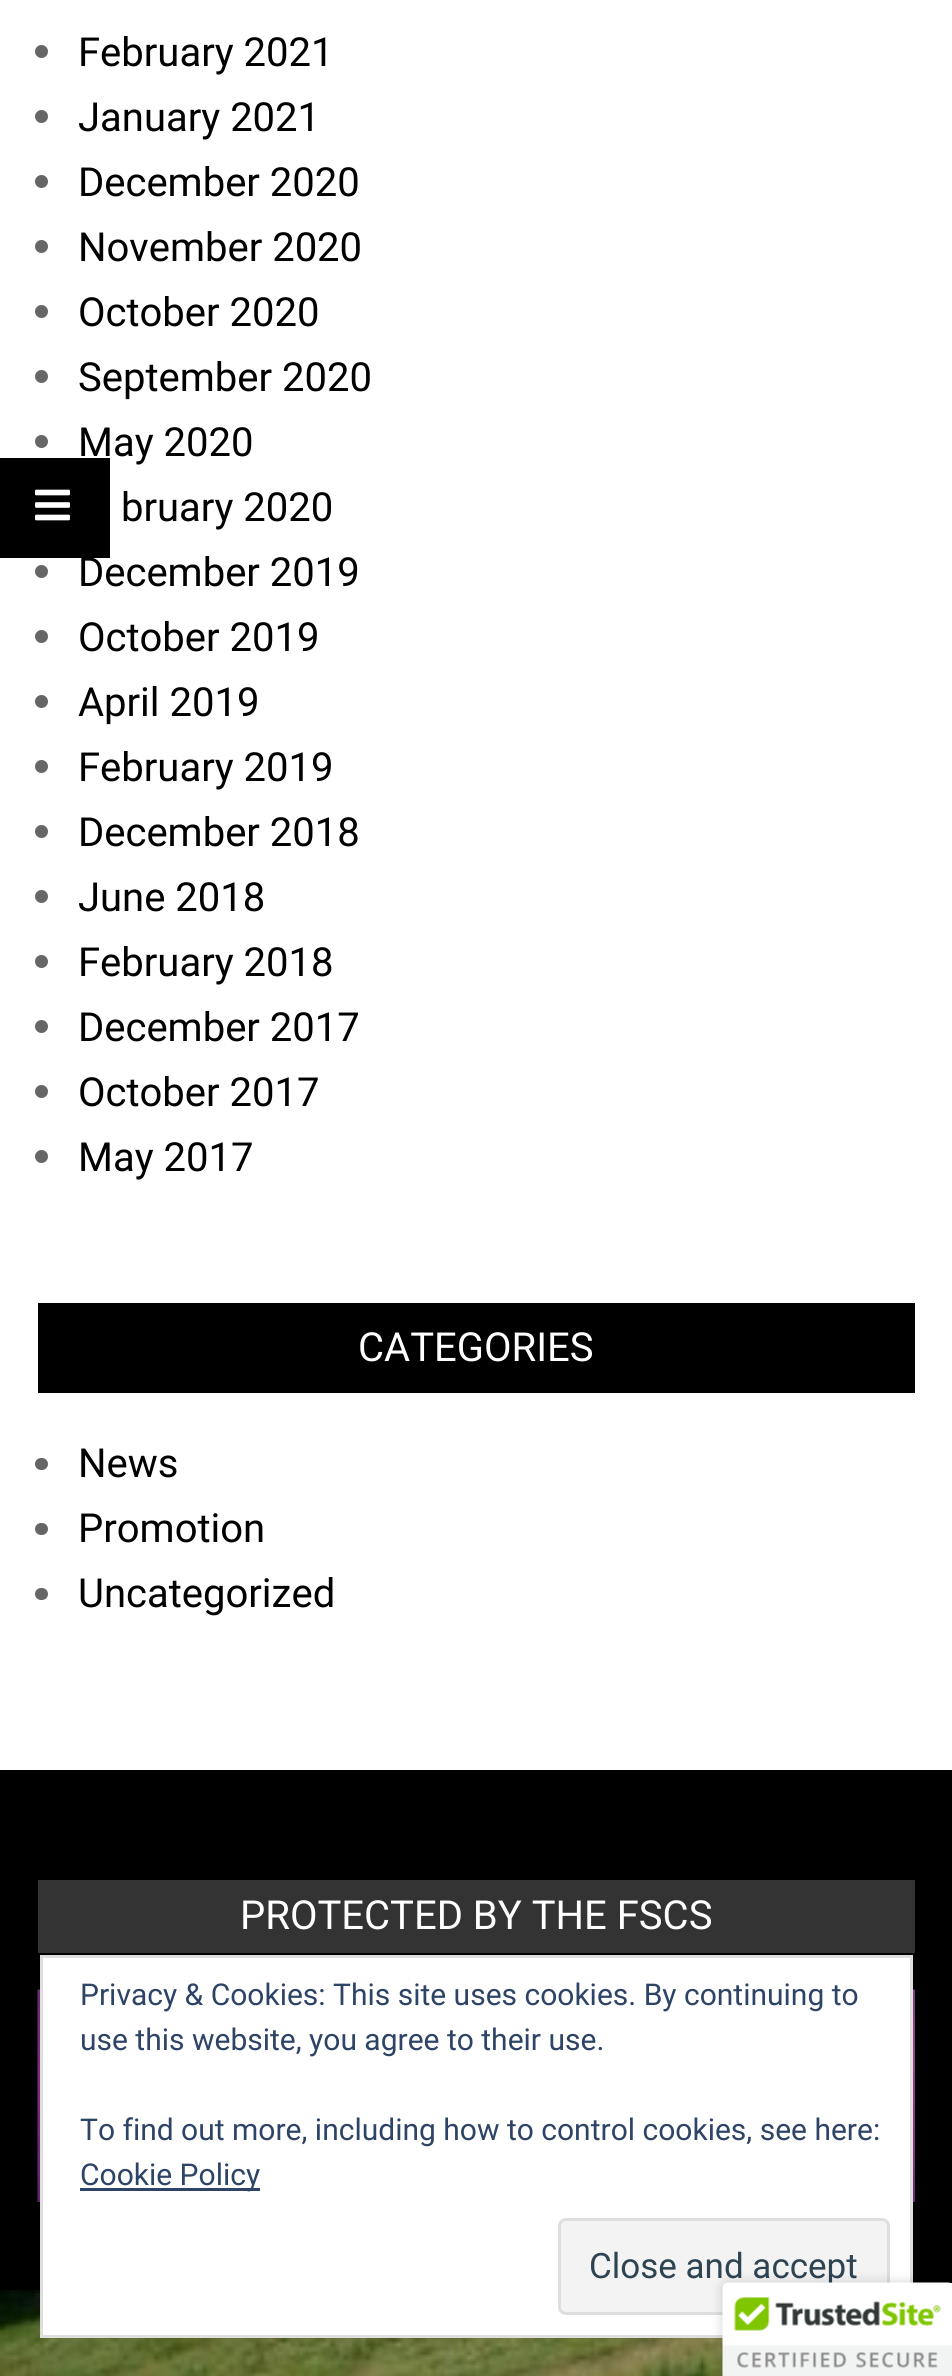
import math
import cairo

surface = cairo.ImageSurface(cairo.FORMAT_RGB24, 952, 2376)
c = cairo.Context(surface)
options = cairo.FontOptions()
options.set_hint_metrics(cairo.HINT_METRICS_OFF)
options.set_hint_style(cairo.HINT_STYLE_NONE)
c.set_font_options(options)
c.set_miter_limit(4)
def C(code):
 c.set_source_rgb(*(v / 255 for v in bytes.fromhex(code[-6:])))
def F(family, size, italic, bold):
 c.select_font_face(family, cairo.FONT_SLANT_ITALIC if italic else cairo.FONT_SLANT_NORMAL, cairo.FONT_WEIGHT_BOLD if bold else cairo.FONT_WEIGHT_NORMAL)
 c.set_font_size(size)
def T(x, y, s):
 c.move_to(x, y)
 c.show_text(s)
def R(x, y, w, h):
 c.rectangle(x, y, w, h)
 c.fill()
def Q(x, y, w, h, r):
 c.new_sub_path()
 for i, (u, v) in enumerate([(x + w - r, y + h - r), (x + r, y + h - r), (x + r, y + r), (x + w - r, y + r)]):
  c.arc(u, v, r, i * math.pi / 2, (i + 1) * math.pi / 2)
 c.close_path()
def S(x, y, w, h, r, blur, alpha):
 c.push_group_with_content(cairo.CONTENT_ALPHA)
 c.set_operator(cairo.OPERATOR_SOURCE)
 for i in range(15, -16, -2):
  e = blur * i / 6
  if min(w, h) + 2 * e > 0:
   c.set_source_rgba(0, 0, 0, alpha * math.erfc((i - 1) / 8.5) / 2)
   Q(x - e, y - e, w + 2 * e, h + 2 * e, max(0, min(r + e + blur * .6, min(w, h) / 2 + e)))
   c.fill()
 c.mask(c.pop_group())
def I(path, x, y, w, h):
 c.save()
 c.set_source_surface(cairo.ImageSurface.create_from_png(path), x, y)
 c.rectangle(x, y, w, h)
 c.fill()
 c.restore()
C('ffffff')
c.paint()
I('1.png',0,2290,723,86)
C('000000')
R(0,458,110,100)
I('2.png',35,489,35,32)
C('666666')
c.arc(41.5,51.5,6.5,0,2 * math.pi)
c.fill()
F('Roboto',40,0,0)
C('000000')
T(78,66,'February 2021')
C('666666')
c.new_path()
c.arc(41.5,116.5,6.5,0,2 * math.pi)
c.fill()
C('000000')
T(78,131,'January 2021')
C('666666')
c.new_path()
c.arc(41.5,181.5,6.5,0,2 * math.pi)
c.fill()
C('000000')
T(78,196,'December 2020')
C('666666')
c.new_path()
c.arc(41.5,246.5,6.5,0,2 * math.pi)
c.fill()
C('000000')
T(78,261,'November 2020')
C('666666')
c.new_path()
c.arc(41.5,311.5,6.5,0,2 * math.pi)
c.fill()
C('000000')
T(78,326,'October 2020')
C('666666')
c.new_path()
c.arc(41.5,376.5,6.5,0,2 * math.pi)
c.fill()
C('000000')
T(78,391,'September 2020')
C('666666')
c.new_path()
c.arc(41.5,441.5,6.5,0,2 * math.pi)
c.fill()
C('000000')
T(78,456,'May 2020')
T(121,521,'bruary 2020')
C('666666')
c.new_path()
c.arc(41.5,571.5,6.5,0,2 * math.pi)
c.fill()
C('000000')
T(78,586,'December 2019')
C('666666')
c.new_path()
c.arc(41.5,636.5,6.5,0,2 * math.pi)
c.fill()
C('000000')
T(78,651,'October 2019')
C('666666')
c.new_path()
c.arc(41.5,701.5,6.5,0,2 * math.pi)
c.fill()
C('000000')
T(78,716,'April 2019')
C('666666')
c.new_path()
c.arc(41.5,766.5,6.5,0,2 * math.pi)
c.fill()
C('000000')
T(78,781,'February 2019')
C('666666')
c.new_path()
c.arc(41.5,831.5,6.5,0,2 * math.pi)
c.fill()
C('000000')
T(78,846,'December 2018')
C('666666')
c.new_path()
c.arc(41.5,896.5,6.5,0,2 * math.pi)
c.fill()
C('000000')
T(78,911,'June 2018')
C('666666')
c.new_path()
c.arc(41.5,961.5,6.5,0,2 * math.pi)
c.fill()
C('000000')
T(78,976,'February 2018')
C('666666')
c.new_path()
c.arc(41.5,1026.5,6.5,0,2 * math.pi)
c.fill()
C('000000')
T(78,1041,'December 2017')
C('666666')
c.new_path()
c.arc(41.5,1091.5,6.5,0,2 * math.pi)
c.fill()
C('000000')
T(78,1106,'October 2017')
C('666666')
c.new_path()
c.arc(41.5,1156.5,6.5,0,2 * math.pi)
c.fill()
C('000000')
T(78,1171,'May 2017')
R(38,1303,877,90)
C('ffffff')
T(358,1361,'CATEGORIES')
C('666666')
Q(35,1458,13,12,6)
c.fill()
C('000000')
T(78,1477,'News')
C('666666')
Q(35,1523,13,12,6)
c.fill()
C('000000')
T(78,1542,'Promotion')
C('666666')
Q(35,1588,13,12,6)
c.fill()
C('000000')
T(78,1607,'Uncategorized')
R(0,1770,952,520)
C('333333')
R(38,1880,877,73)
C('ffffff')
T(240,1929,'PROTECTED BY THE FSCS')
I('3.png',37,1989,878,213)
c.set_source_rgba(0,0,0,0.33)
R(0,2290,40,3)
C('ffffff')
c.rectangle(41.5,1956.5,870,380)
c.fill_preserve()
C('dedede')
c.set_line_width(3)
c.stroke()
F('Roboto',30,0,0)
C('2e4467')
T(80,2005,'Privacy & Cookies: This site uses cookies. By continuing to')
T(80,2050,'use this website, you agree to their use.')
T(80,2140,'To find out more, including how to control cookies, see here:')
R(80,2188,180,3)
T(80,2185,'Cookie Policy')
C('f3f3f3')
Q(559.5,2219.5,329,94,6.5)
c.fill_preserve()
C('dedede')
c.stroke()
F('Roboto',35,0,0)
C('2e4453')
T(589,2278,'Close and accept')
C('000000')
S(723,2283,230,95,5,6,.2)
C('ffffff')
c.new_path()
c.move_to(728,2283)
c.line_to(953,2283)
c.line_to(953,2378)
c.line_to(723,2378)
c.line_to(723,2288)
c.curve_to(723,2285,725,2283,728,2283)
c.close_path()
c.fill()
I('4.png',722,2282,230,94)
surface.write_to_png('o.png')
